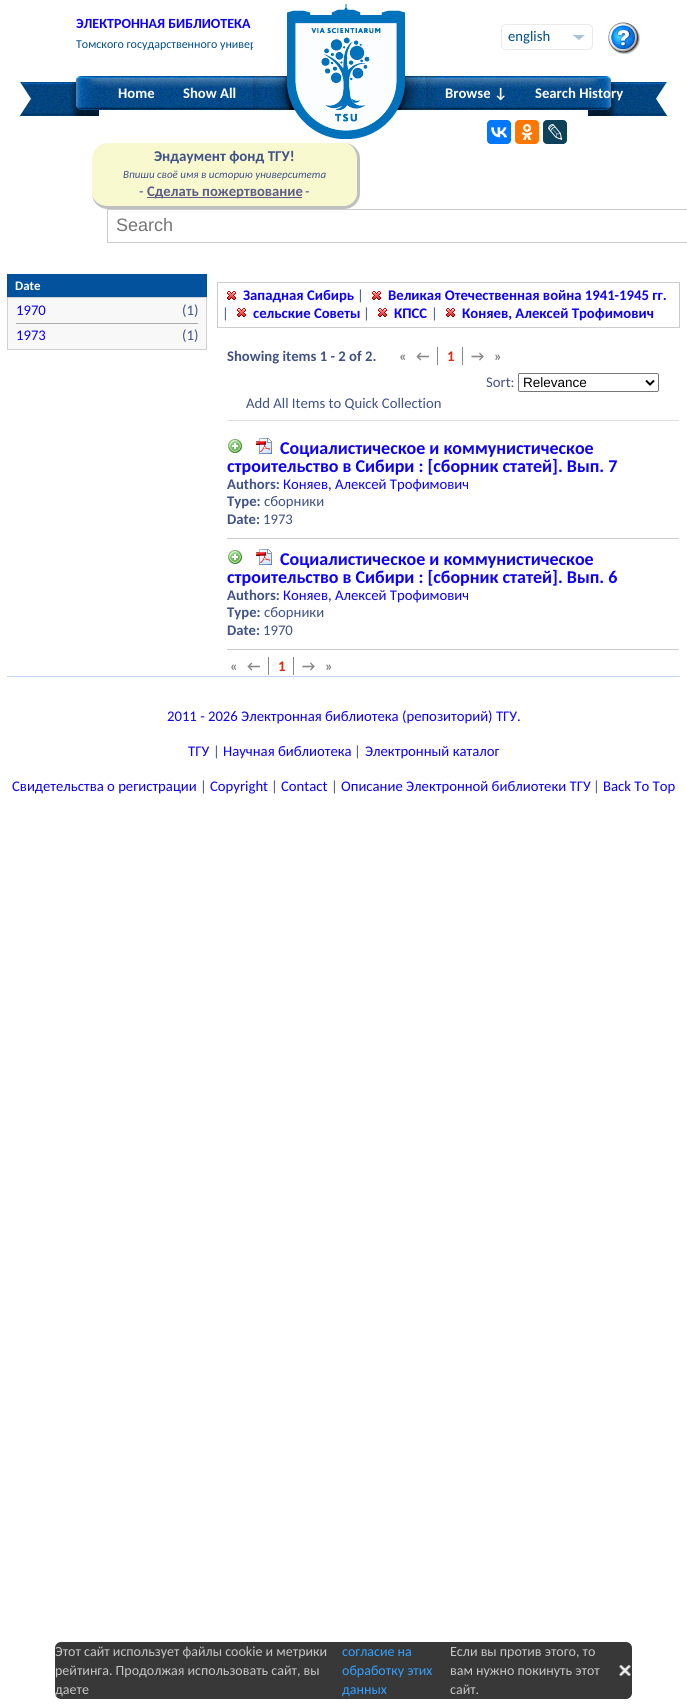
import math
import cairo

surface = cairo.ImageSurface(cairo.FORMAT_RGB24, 687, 1706)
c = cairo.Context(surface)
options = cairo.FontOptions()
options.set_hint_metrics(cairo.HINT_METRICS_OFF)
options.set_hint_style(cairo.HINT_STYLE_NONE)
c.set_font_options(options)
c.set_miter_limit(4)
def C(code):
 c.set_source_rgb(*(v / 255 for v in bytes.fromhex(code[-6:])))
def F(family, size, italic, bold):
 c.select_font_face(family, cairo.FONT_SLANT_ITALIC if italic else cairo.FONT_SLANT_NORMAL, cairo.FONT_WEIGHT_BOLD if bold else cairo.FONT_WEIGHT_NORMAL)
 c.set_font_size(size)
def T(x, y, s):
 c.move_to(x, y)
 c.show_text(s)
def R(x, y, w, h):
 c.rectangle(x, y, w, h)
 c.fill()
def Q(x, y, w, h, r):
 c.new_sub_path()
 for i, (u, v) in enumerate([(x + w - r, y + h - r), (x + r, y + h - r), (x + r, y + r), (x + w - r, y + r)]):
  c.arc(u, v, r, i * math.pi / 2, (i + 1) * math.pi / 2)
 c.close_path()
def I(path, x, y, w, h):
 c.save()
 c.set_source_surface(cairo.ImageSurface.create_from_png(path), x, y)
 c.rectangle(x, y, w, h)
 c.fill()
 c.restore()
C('ffffff')
c.paint()
F('Carlito',14,0,1)
C('0c00ff')
T(76,28,'ЭЛЕКТРОННАЯ БИБЛИОТЕКА')
F('Carlito',12,0,0)
C('004e8b')
T(76,48,'Томского государственного универ')
Q(501.5,24.5,91,25,4.5)
C('ebe9e9')
c.set_line_width(1)
c.stroke()
I('1.png',573,35,12,5)
F('Carlito',14.7,0,0)
C('004e8b')
T(508,41,'english')
I('2.png',608,22,32,32)
I('3.png',20,76,95,40)
I('4.png',572,76,95,40)
I('5.png',115,76,457,34)
F('Carlito',14.7,0,1)
C('ffffff')
T(118,98,'Home')
T(183,98,'Show All')
I('6.png',253,4,183,135)
T(445,98,'Browse ↓')
T(535,98,'Search History')
C('f9f9d0')
c.new_path()
c.move_to(108,143)
c.line_to(344,143)
c.curve_to(351,143,357,150,357,159)
c.line_to(357,193)
c.curve_to(357,200,351,206,344,206)
c.line_to(108,206)
c.curve_to(99,206,92,200,92,193)
c.line_to(92,159)
c.curve_to(92,150,99,143,108,143)
c.close_path()
c.fill()
C('c0c0c0')
c.set_fill_rule(cairo.FILL_RULE_EVEN_ODD)
c.new_path()
c.move_to(108,143)
c.line_to(344,143)
c.curve_to(353,143,360,150,360,159)
c.line_to(360,193)
c.curve_to(360,202,353,209,344,209)
c.line_to(108,209)
c.curve_to(99,209,92,202,92,193)
c.line_to(92,159)
c.curve_to(92,150,99,143,108,143)
c.close_path()
c.move_to(108,143)
c.line_to(344,143)
c.curve_to(351,143,357,150,357,159)
c.line_to(357,193)
c.curve_to(357,200,351,206,344,206)
c.line_to(108,206)
c.curve_to(99,206,92,200,92,193)
c.line_to(92,159)
c.curve_to(92,150,99,143,108,143)
c.close_path()
c.fill()
F('Carlito',15,0,1)
C('405286')
T(154,161,'Эндаумент фонд ТГУ!')
F('Carlito',11,1,0)
T(123,178,'Впиши своё имя в историю университета')
F('Carlito',14.7,0,0)
T(139,196,'-')
C('5d5d86')
R(147,197,155,1)
F('Carlito',14.7,0,1)
T(147,196,'Сделать пожертвование')
F('Carlito',14.7,0,0)
C('405286')
T(305,196,'-')
c.rectangle(107.5,209.5,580,33)
C('cccccc')
c.stroke()
F('Liberation Sans',18,0,0)
C('757575')
T(116,231,'Search')
C('d0d0d0')
R(7,349,200,1)
C('02529d')
R(7,274,200,23)
C('d0d0d0')
R(7,297,200,1)
F('Carlito',13,0,1)
C('ffffff')
T(15,290,'Date')
C('f8f8f8')
R(8,298,198,51)
C('d0d0d0')
R(206,298,1,51)
R(7,298,1,51)
F('Carlito',14.7,0,0)
C('0c00ff')
T(16,315,'1970')
C('405286')
T(182,315,'(1)')
C('aaaaaa')
R(16,323,182,1)
C('0c00ff')
T(16,340,'1973')
C('405286')
T(182,340,'(1)')
c.rectangle(217.5,282.5,462,45)
C('cccccc')
c.stroke()
I('7.png',227,291,9,9)
F('Carlito',14.7,0,1)
C('0c00ff')
T(243,300,'Западная Сибирь')
F('Carlito',14.7,0,0)
C('405286')
T(357,300,'|')
I('7.png',372,291,9,9)
F('Carlito',14.7,0,1)
C('0c00ff')
T(388,300,'Великая Отечественная война 1941-1945 гг.')
F('Carlito',14.7,0,0)
C('405286')
T(222,318,'|')
I('7.png',237,308,9,9)
F('Carlito',14.7,0,1)
C('0c00ff')
T(253,318,'сельские Советы')
F('Carlito',14.7,0,0)
C('405286')
T(363,318,'|')
I('7.png',378,308,9,9)
F('Carlito',14.7,0,1)
C('0c00ff')
T(394,318,'КПСС')
F('Carlito',14.7,0,0)
C('405286')
T(431,318,'|')
I('7.png',446,308,9,9)
F('Carlito',14.7,0,1)
C('0c00ff')
T(462,318,'Коняев, Алексей Трофимович')
C('0077ff')
Q(487,120,24,24,4)
c.fill()
I('8.png',491,127,16,11)
C('ff7700')
Q(515,120,24,24,4)
c.fill()
I('9.png',521,124,12,16)
C('0d425a')
Q(543,120,24,24,4)
c.fill()
I('10.png',548,124,15,16)
C('405286')
T(227,361,'Showing items 1 - 2 of 2.')
C('888888')
T(399,361,'«')
T(416,361,'←')
R(437,347,1,18)
C('de290a')
T(447,361,'1')
C('888888')
T(471,361,'→')
R(462,347,1,18)
T(494,361,'»')
F('Carlito',14.7,0,0)
C('405286')
T(486,387,'Sort:')
Q(518.5,373.5,140,18,1.5)
C('767676')
c.stroke()
c.new_path()
c.move_to(646,380.5)
c.line_to(650,384.5)
c.line_to(654,380.5)
C('000000')
c.set_line_width(2)
c.stroke()
F('Liberation Sans',13.5,0,0)
T(523,387,'Relevance')
F('Carlito',14.7,0,0)
C('405286')
T(246,408,'Add All Items to Quick Collection')
C('e0e0e0')
R(227,420,452,1)
C('cccccc')
R(227,538,452,1)
I('11.png',228,439,14,14)
I('12.png',256,438,16,16)
F('Carlito',18,0,1)
C('0c00ff')
T(280,454,'Социалистическое и коммунистическое')
T(227,472,'строительство в Сибири : [сборник статей]. Вып. 7')
F('Carlito',14.7,0,1)
C('405286')
T(227,489,'Authors:')
F('Carlito',14.7,0,0)
C('0c00ff')
T(283,489,'Коняев, Алексей Трофимович')
F('Carlito',14.7,0,1)
C('405286')
T(227,506,'Type:')
F('Carlito',14.7,0,0)
T(264,506,'сборники')
F('Carlito',14.7,0,1)
T(227,524,'Date:')
F('Carlito',14.7,0,0)
T(263,524,'1973')
C('cccccc')
R(227,649,452,1)
I('11.png',228,550,14,14)
I('12.png',256,549,16,16)
F('Carlito',18,0,1)
C('0c00ff')
T(280,565,'Социалистическое и коммунистическое')
T(227,583,'строительство в Сибири : [сборник статей]. Вып. 6')
F('Carlito',14.7,0,1)
C('405286')
T(227,600,'Authors:')
F('Carlito',14.7,0,0)
C('0c00ff')
T(283,600,'Коняев, Алексей Трофимович')
F('Carlito',14.7,0,1)
C('405286')
T(227,617,'Type:')
F('Carlito',14.7,0,0)
T(264,617,'сборники')
F('Carlito',14.7,0,1)
T(227,635,'Date:')
F('Carlito',14.7,0,0)
T(263,635,'1970')
F('Carlito',14.7,0,1)
C('888888')
T(230,671,'«')
T(247,671,'←')
R(268,657,1,18)
C('de290a')
T(278,671,'1')
C('888888')
T(302,671,'→')
R(293,657,1,18)
T(325,671,'»')
C('c5d5f6')
R(7,676,673,1)
F('Carlito',14.7,0,0)
C('0c00ff')
T(167,721,'2011 - 2026 Электронная библиотека (репозиторий) ТГУ.')
T(188,756,'ТГУ')
C('405286')
T(213,756,'|')
C('0c00ff')
T(223,756,'Научная библиотека')
C('405286')
T(354,756,'|')
C('0c00ff')
T(365,756,'Электронный каталог')
T(12,791,'Свидетельства о регистрации')
C('405286')
T(200,791,'|')
C('0c00ff')
T(210,791,'Copyright')
C('405286')
T(271,791,'|')
C('0c00ff')
T(281,791,'Contact')
C('405286')
T(331,791,'|')
C('0c00ff')
T(341,791,'Описание Электронной библиотеки ТГУ')
C('405286')
T(593,791,'|')
C('0c00ff')
T(603,791,'Back To Top')
C('383838')
Q(55,1642,577,57,6)
c.fill()
F('Carlito',14,0,0)
C('c7c7c7')
T(55,1656,'Этот сайт использует файлы cookie и метрики')
C('34a0ff')
T(342,1656,'согласие на')
T(342,1675,'обработку этих')
T(342,1694,'данных')
C('c7c7c7')
T(450,1656,'Если вы против этого, то')
T(55,1675,'рейтинга. Продолжая использовать сайт, вы')
T(450,1675,'вам нужно покинуть этот')
I('13.png',619,1665,12,11)
T(55,1694,'даете')
T(450,1694,'сайт.')
surface.write_to_png('o.png')
